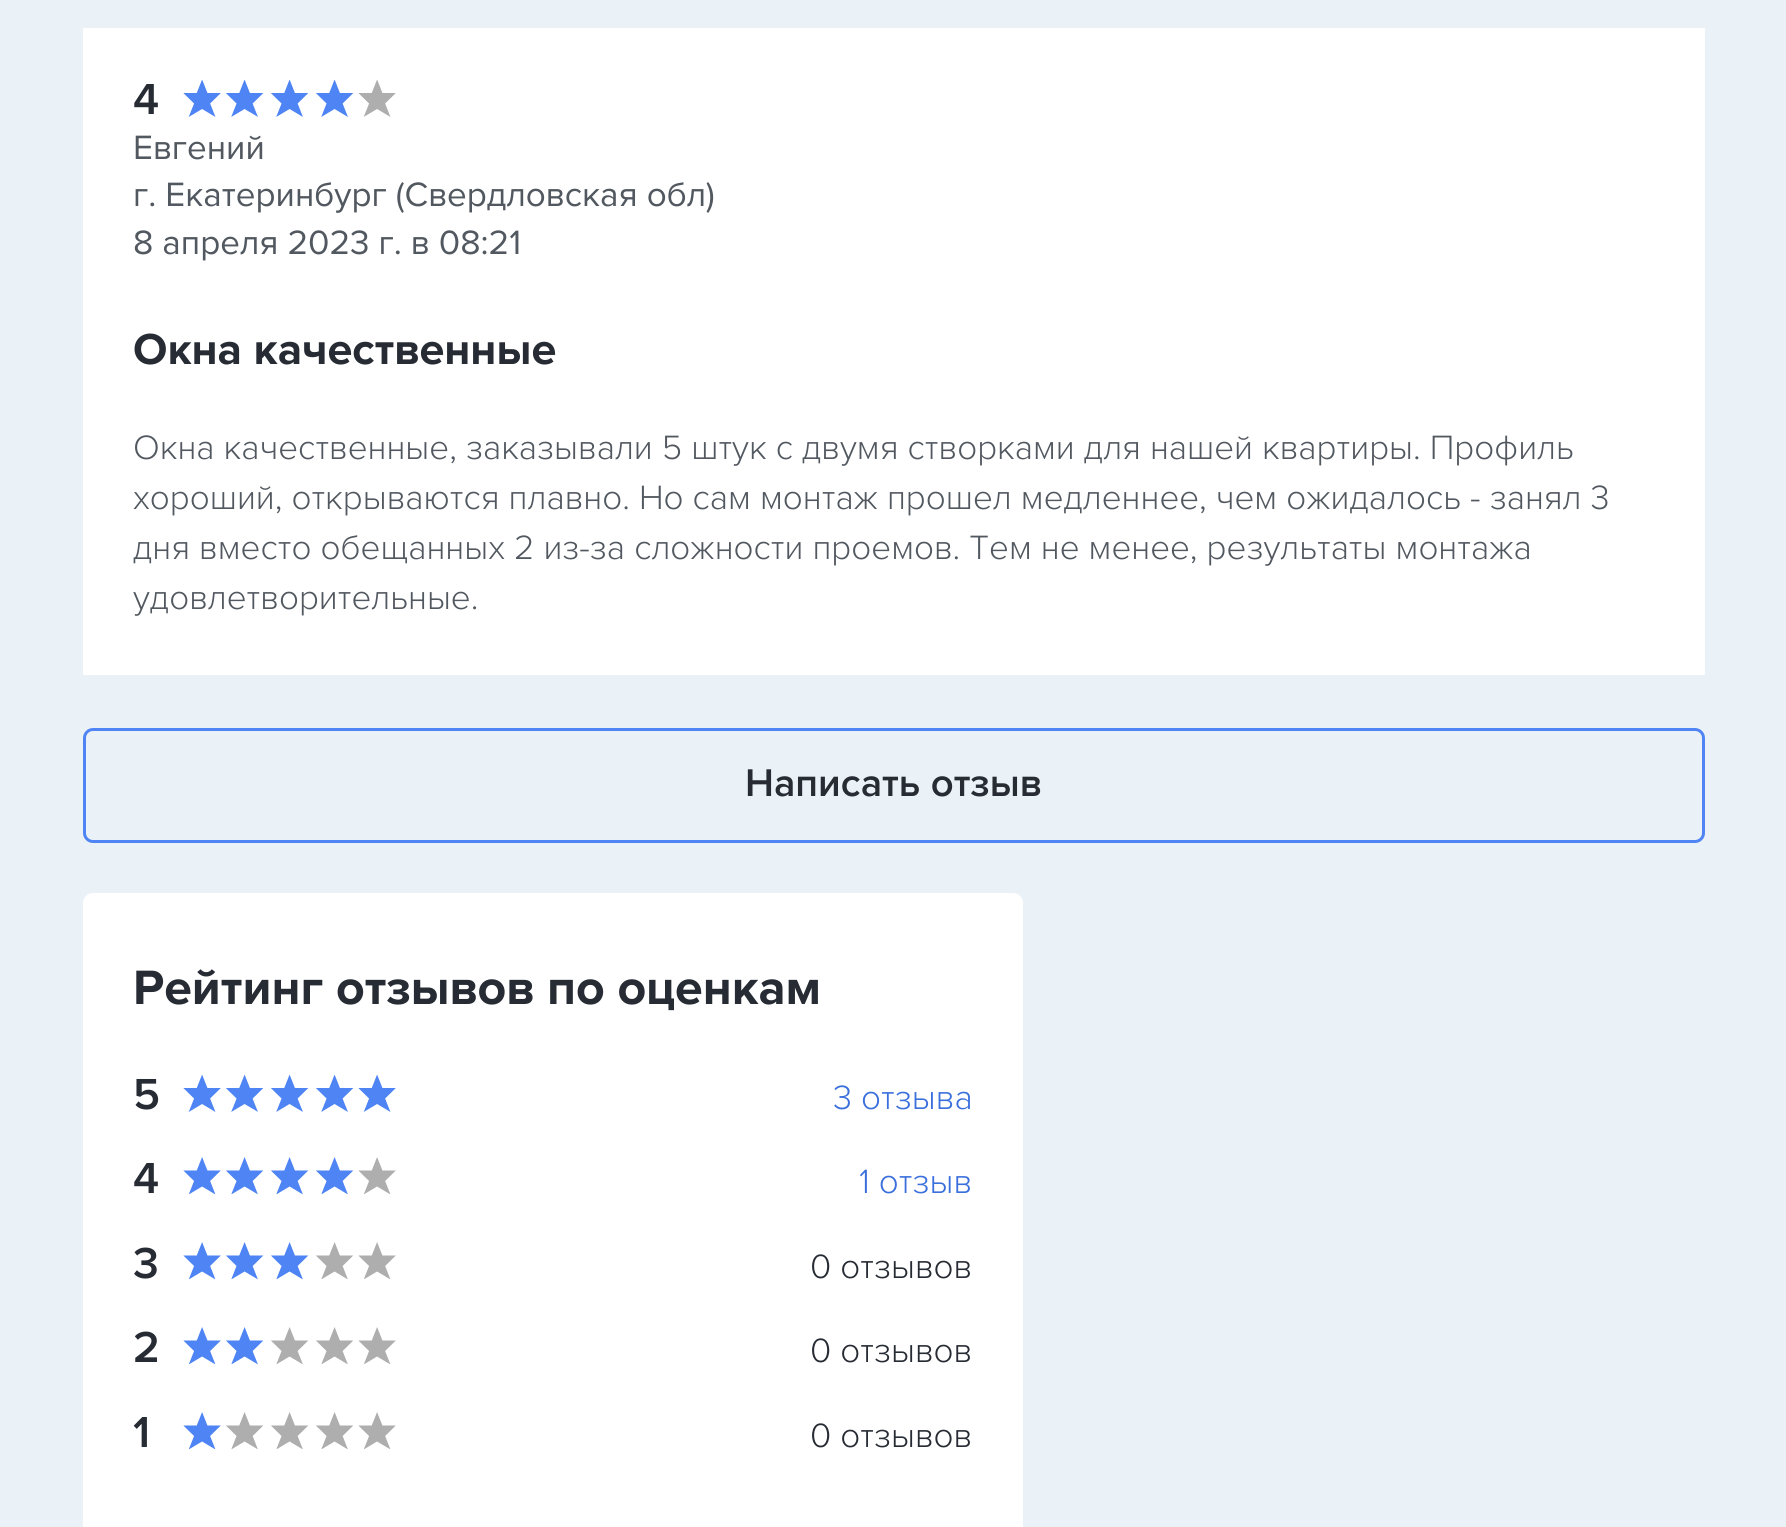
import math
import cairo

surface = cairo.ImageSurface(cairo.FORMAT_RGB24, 1786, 1527)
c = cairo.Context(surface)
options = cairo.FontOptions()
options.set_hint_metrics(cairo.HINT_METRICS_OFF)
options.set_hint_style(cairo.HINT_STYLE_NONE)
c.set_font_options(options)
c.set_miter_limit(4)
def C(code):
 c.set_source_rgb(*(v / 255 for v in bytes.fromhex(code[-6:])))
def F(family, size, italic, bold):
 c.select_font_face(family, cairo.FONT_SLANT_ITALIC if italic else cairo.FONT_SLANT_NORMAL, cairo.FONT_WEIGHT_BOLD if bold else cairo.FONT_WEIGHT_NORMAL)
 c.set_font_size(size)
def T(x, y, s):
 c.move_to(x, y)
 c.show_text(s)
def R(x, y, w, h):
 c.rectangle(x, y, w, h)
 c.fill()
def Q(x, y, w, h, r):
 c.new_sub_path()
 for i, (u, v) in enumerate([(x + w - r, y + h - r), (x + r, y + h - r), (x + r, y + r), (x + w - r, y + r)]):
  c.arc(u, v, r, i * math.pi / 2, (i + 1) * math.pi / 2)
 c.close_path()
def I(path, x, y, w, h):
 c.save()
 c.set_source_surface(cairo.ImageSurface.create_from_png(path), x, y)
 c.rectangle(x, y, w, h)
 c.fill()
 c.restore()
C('ebf2f7')
c.paint()
C('ffffff')
R(83,28,1622,647)
F('Proxima Nova SemiBold',45,0,0)
C('272c34')
T(133,114,'4')
I('1.png',183,80,38,37)
I('2.png',226,80,38,37)
I('3.png',271,80,38,37)
I('3.png',316,80,38,37)
I('4.png',358,80,38,37)
F('Proxima Nova',35,0,0)
C('525860')
T(133,159,'Евгений')
T(133,206,'г. Екатеринбург (Свердловская обл)')
T(133,254,'8 апреля 2023 г. в 08:21')
F('Proxima Nova',45,0,1)
C('272c34')
T(133,364,'Окна качественные')
F('Proxima Nova Light',35,0,0)
C('525860')
T(133,459,'Окна качественные, заказывали 5 штук с двумя створками для нашей квартиры. Профиль')
T(133,509,'хороший, открываются плавно. Но сам монтаж прошел медленнее, чем ожидалось - занял 3')
T(133,559,'дня вместо обещанных 2 из-за сложности проемов. Тем не менее, результаты монтажа')
T(133,609,'удовлетворительные.')
Q(84.5,729.5,1619,112,8.5)
C('4e84f4')
c.set_line_width(3)
c.stroke()
F('Proxima Nova SemiBold',40,0,0)
C('272c34')
T(745,796,'Написать отзыв')
C('ffffff')
Q(83,893,940,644,10)
c.fill()
F('Proxima Nova',50,0,1)
C('272c34')
T(133,1004,'Рейтинг отзывов по оценкам')
F('Proxima Nova SemiBold',45,0,0)
T(133,1109,'5')
I('5.png',183,1075,38,37)
I('6.png',226,1075,38,37)
I('7.png',271,1075,38,37)
I('7.png',316,1075,38,37)
I('5.png',358,1075,38,37)
F('Proxima Nova Light',35,0,0)
C('3a6fdc')
T(833,1109,'3 отзыва')
F('Proxima Nova SemiBold',45,0,0)
C('272c34')
T(133,1193,'4')
I('8.png',183,1157,38,38)
I('9.png',226,1157,38,38)
I('10.png',271,1157,38,38)
I('10.png',316,1157,38,38)
I('11.png',358,1157,38,37)
F('Proxima Nova Light',35,0,0)
C('3a6fdc')
T(859,1193,'1 отзыв')
F('Proxima Nova SemiBold',45,0,0)
C('272c34')
T(133,1278,'3')
I('8.png',183,1242,38,38)
I('9.png',226,1242,38,38)
I('10.png',271,1242,38,38)
I('12.png',316,1242,37,37)
I('11.png',358,1242,38,37)
F('Proxima Nova Light',35,0,0)
T(810,1278,'0 отзывов')
F('Proxima Nova SemiBold',45,0,0)
T(133,1362,'2')
I('13.png',183,1327,38,38)
I('14.png',226,1327,38,38)
I('15.png',271,1327,37,37)
I('15.png',316,1327,37,37)
I('16.png',358,1327,38,37)
F('Proxima Nova Light',35,0,0)
T(810,1362,'0 отзывов')
F('Proxima Nova SemiBold',45,0,0)
T(133,1447,'1')
I('8.png',183,1412,38,38)
I('17.png',226,1412,37,37)
I('12.png',271,1412,37,37)
I('12.png',316,1412,37,37)
I('11.png',358,1412,38,37)
F('Proxima Nova Light',35,0,0)
T(810,1447,'0 отзывов')
surface.write_to_png('o.png')
